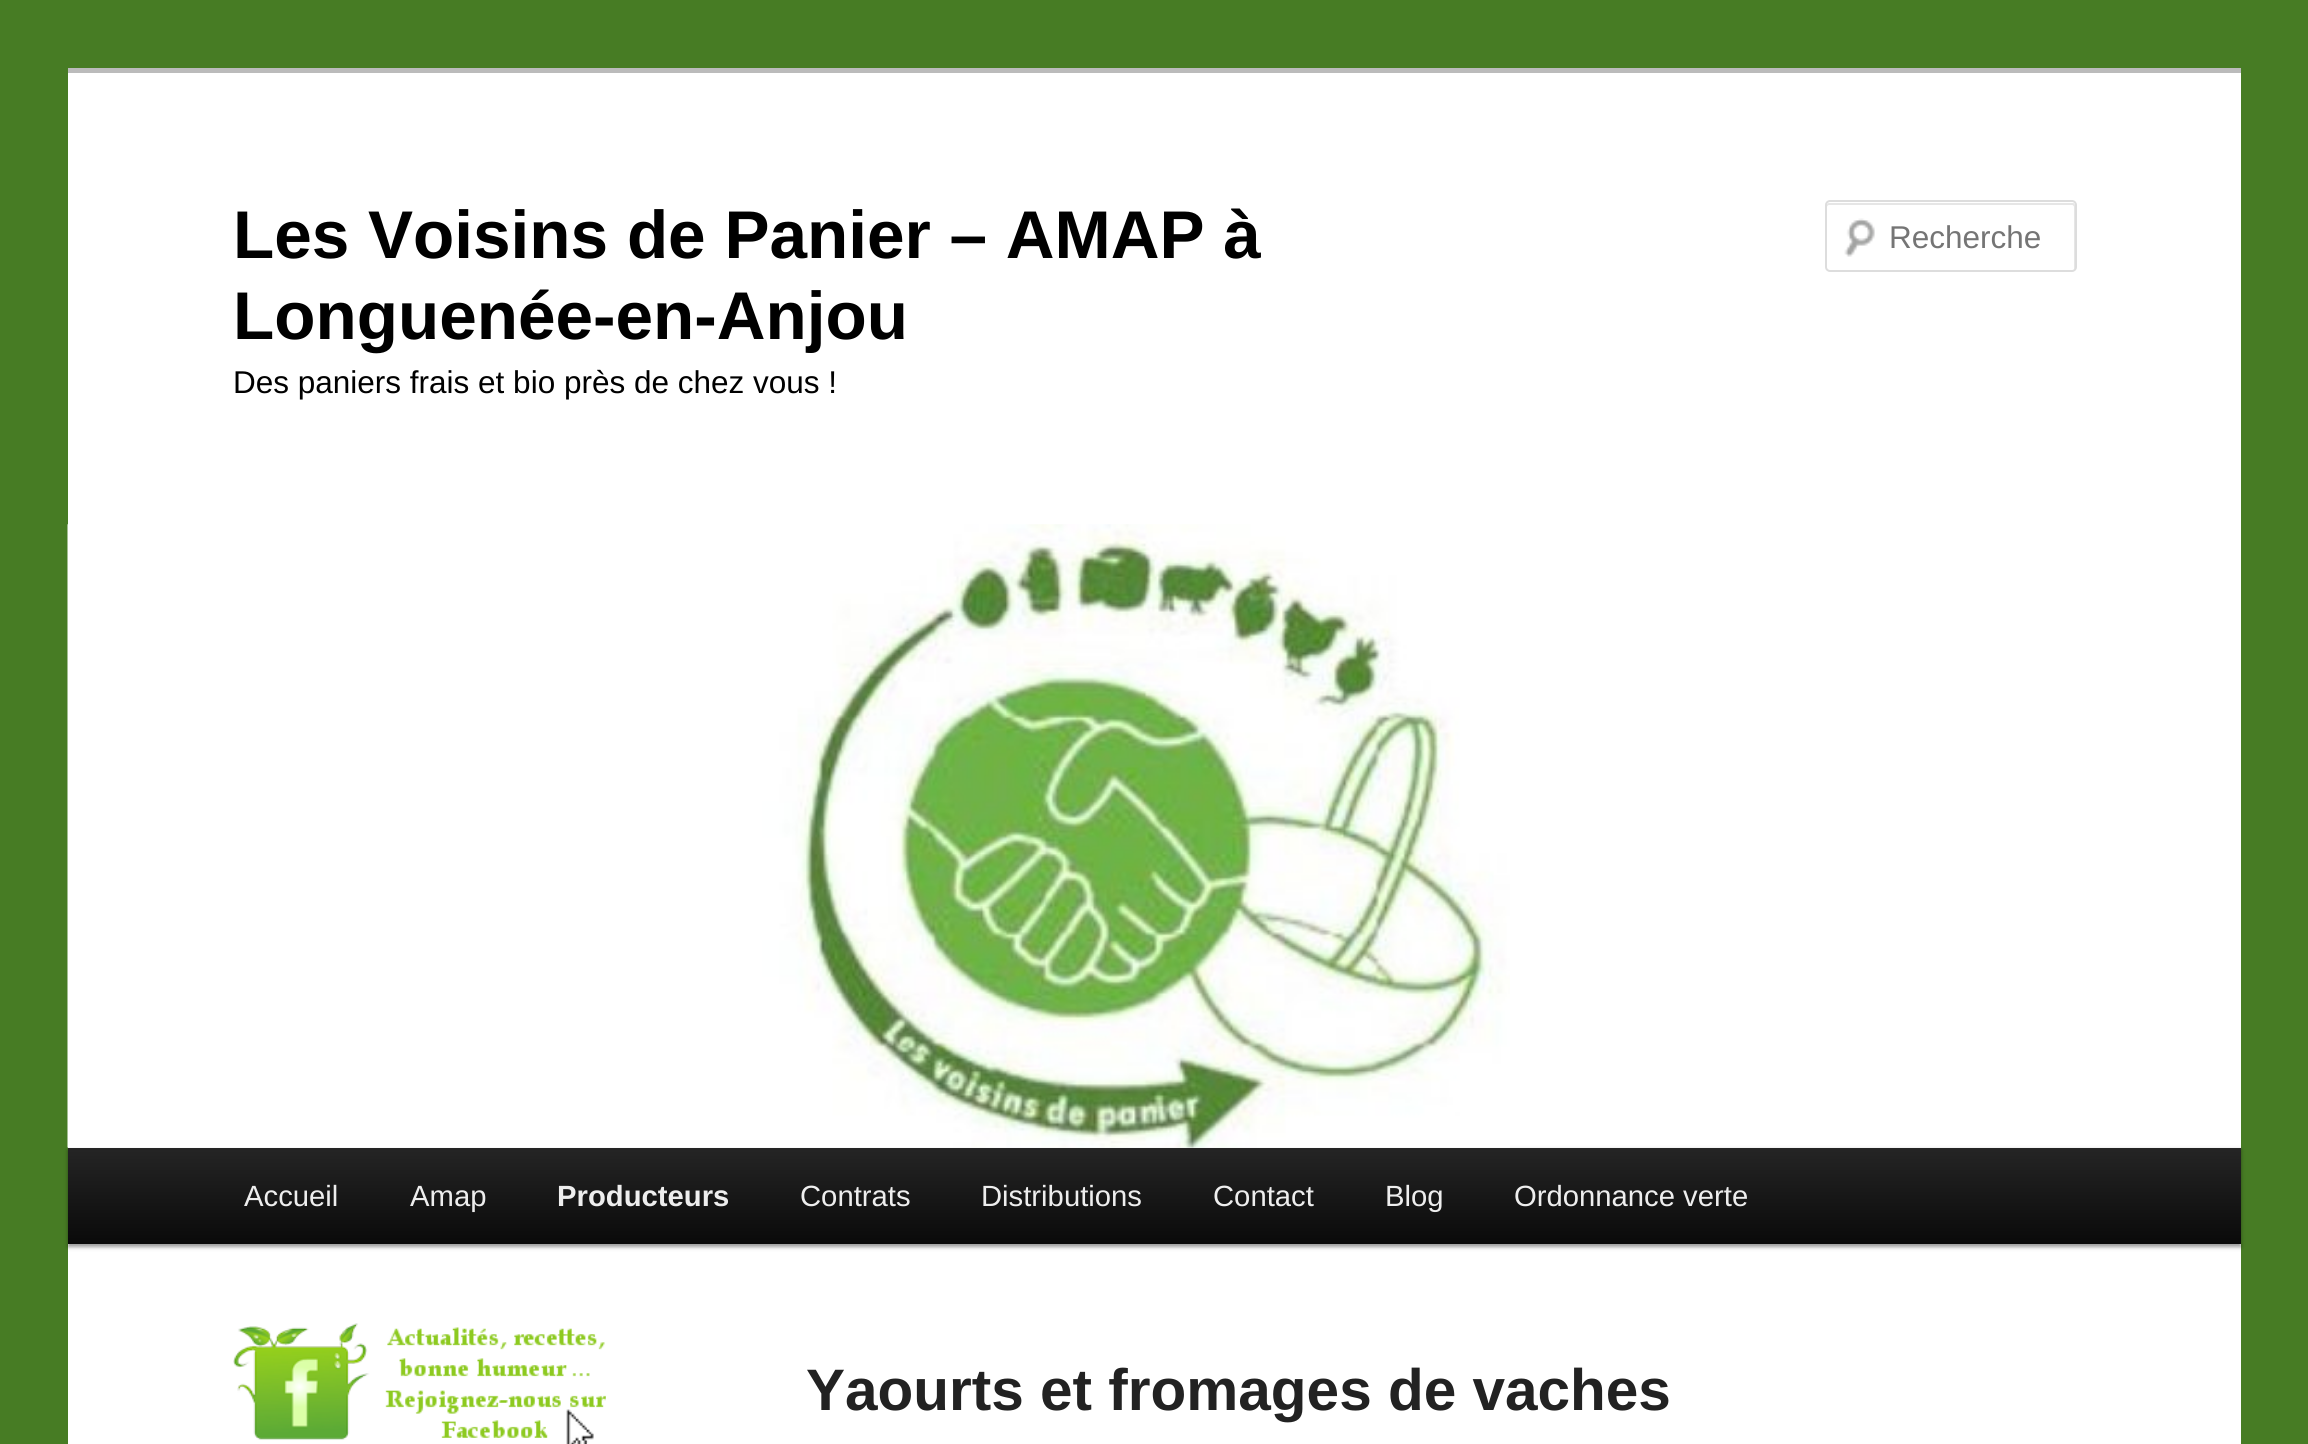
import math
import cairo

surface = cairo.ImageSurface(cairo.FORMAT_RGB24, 2308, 1444)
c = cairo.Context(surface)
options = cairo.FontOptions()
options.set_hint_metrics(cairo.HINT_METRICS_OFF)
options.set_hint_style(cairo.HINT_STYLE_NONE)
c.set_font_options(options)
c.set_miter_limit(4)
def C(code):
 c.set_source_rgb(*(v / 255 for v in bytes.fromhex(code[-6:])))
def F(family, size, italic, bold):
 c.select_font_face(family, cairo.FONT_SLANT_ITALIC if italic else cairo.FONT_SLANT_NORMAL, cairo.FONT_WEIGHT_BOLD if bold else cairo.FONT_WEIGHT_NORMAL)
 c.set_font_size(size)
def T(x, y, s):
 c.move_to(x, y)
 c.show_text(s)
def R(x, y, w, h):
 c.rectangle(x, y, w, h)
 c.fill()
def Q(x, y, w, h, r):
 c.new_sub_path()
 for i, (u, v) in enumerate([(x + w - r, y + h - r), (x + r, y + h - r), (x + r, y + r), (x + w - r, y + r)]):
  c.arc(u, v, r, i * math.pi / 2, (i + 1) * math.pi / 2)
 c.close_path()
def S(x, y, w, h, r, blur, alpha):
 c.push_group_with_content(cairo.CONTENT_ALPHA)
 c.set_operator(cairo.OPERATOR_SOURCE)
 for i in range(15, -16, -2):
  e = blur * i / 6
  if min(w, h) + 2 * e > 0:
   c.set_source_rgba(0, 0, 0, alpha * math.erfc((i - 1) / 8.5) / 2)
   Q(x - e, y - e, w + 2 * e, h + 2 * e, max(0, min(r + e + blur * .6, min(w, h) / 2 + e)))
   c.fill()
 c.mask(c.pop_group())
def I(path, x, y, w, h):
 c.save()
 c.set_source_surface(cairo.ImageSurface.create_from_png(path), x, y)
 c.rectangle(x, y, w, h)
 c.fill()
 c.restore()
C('477c24')
c.paint()
C('ffffff')
R(68,73,2173,1371)
C('bbbbbb')
R(68,68,2173,5)
F('Liberation Sans',67.5,0,1)
C('000000')
T(233,258,'Les Voisins de Panier – AMAP à')
T(233,339,'Longuenée-en-Anjou')
F('Liberation Sans',31.5,0,0)
T(233,393,'Des paniers frais et bio près de chez vous !')
I('1.png',1844,218,31,39)
C('e6e6e6')
c.new_path()
c.move_to(1829,205)
c.line_to(2072,205)
c.curve_to(2073,205,2074,206,2074,207)
c.line_to(2074,270)
c.curve_to(2075,269,2075,269,2075,268)
c.line_to(2075,205)
c.curve_to(2075,204,2074,203,2073,203)
c.line_to(1829,203)
c.curve_to(1828,203,1827,204,1827,205)
c.line_to(1827,207)
c.curve_to(1827,206,1828,205,1829,205)
c.close_path()
c.fill()
Q(1826,201,250,70,4)
C('dddddd')
c.stroke()
C('757575')
T(1889,248,'Recherche')
C('000000')
S(68,1150,2173,97,0,2,.4)
I('2.png',67,524,1443,624)
gradient = cairo.LinearGradient(1154,1147,1154,1244)
gradient.add_color_stop_rgba(0,0.145,0.145,0.145,1)
gradient.add_color_stop_rgba(1,0.039,0.039,0.039,1)
c.set_source(gradient)
R(68,1148,2173,96)
F('Liberation Sans',29.25,0,0)
C('eeeeee')
T(244,1206,'Accueil')
T(410,1206,'Amap')
F('Liberation Sans',29.25,0,1)
T(557,1206,'Producteurs')
F('Liberation Sans',29.25,0,0)
T(800,1206,'Contrats')
T(981,1206,'Distributions')
T(1213,1206,'Contact')
T(1385,1206,'Blog')
T(1514,1206,'Ordonnance verte')
I('3.png',233,1323,373,121)
F('Liberation Sans',58.5,0,1)
C('222222')
T(806,1410,'Yaourts et fromages de vaches')
surface.write_to_png('o.png')
